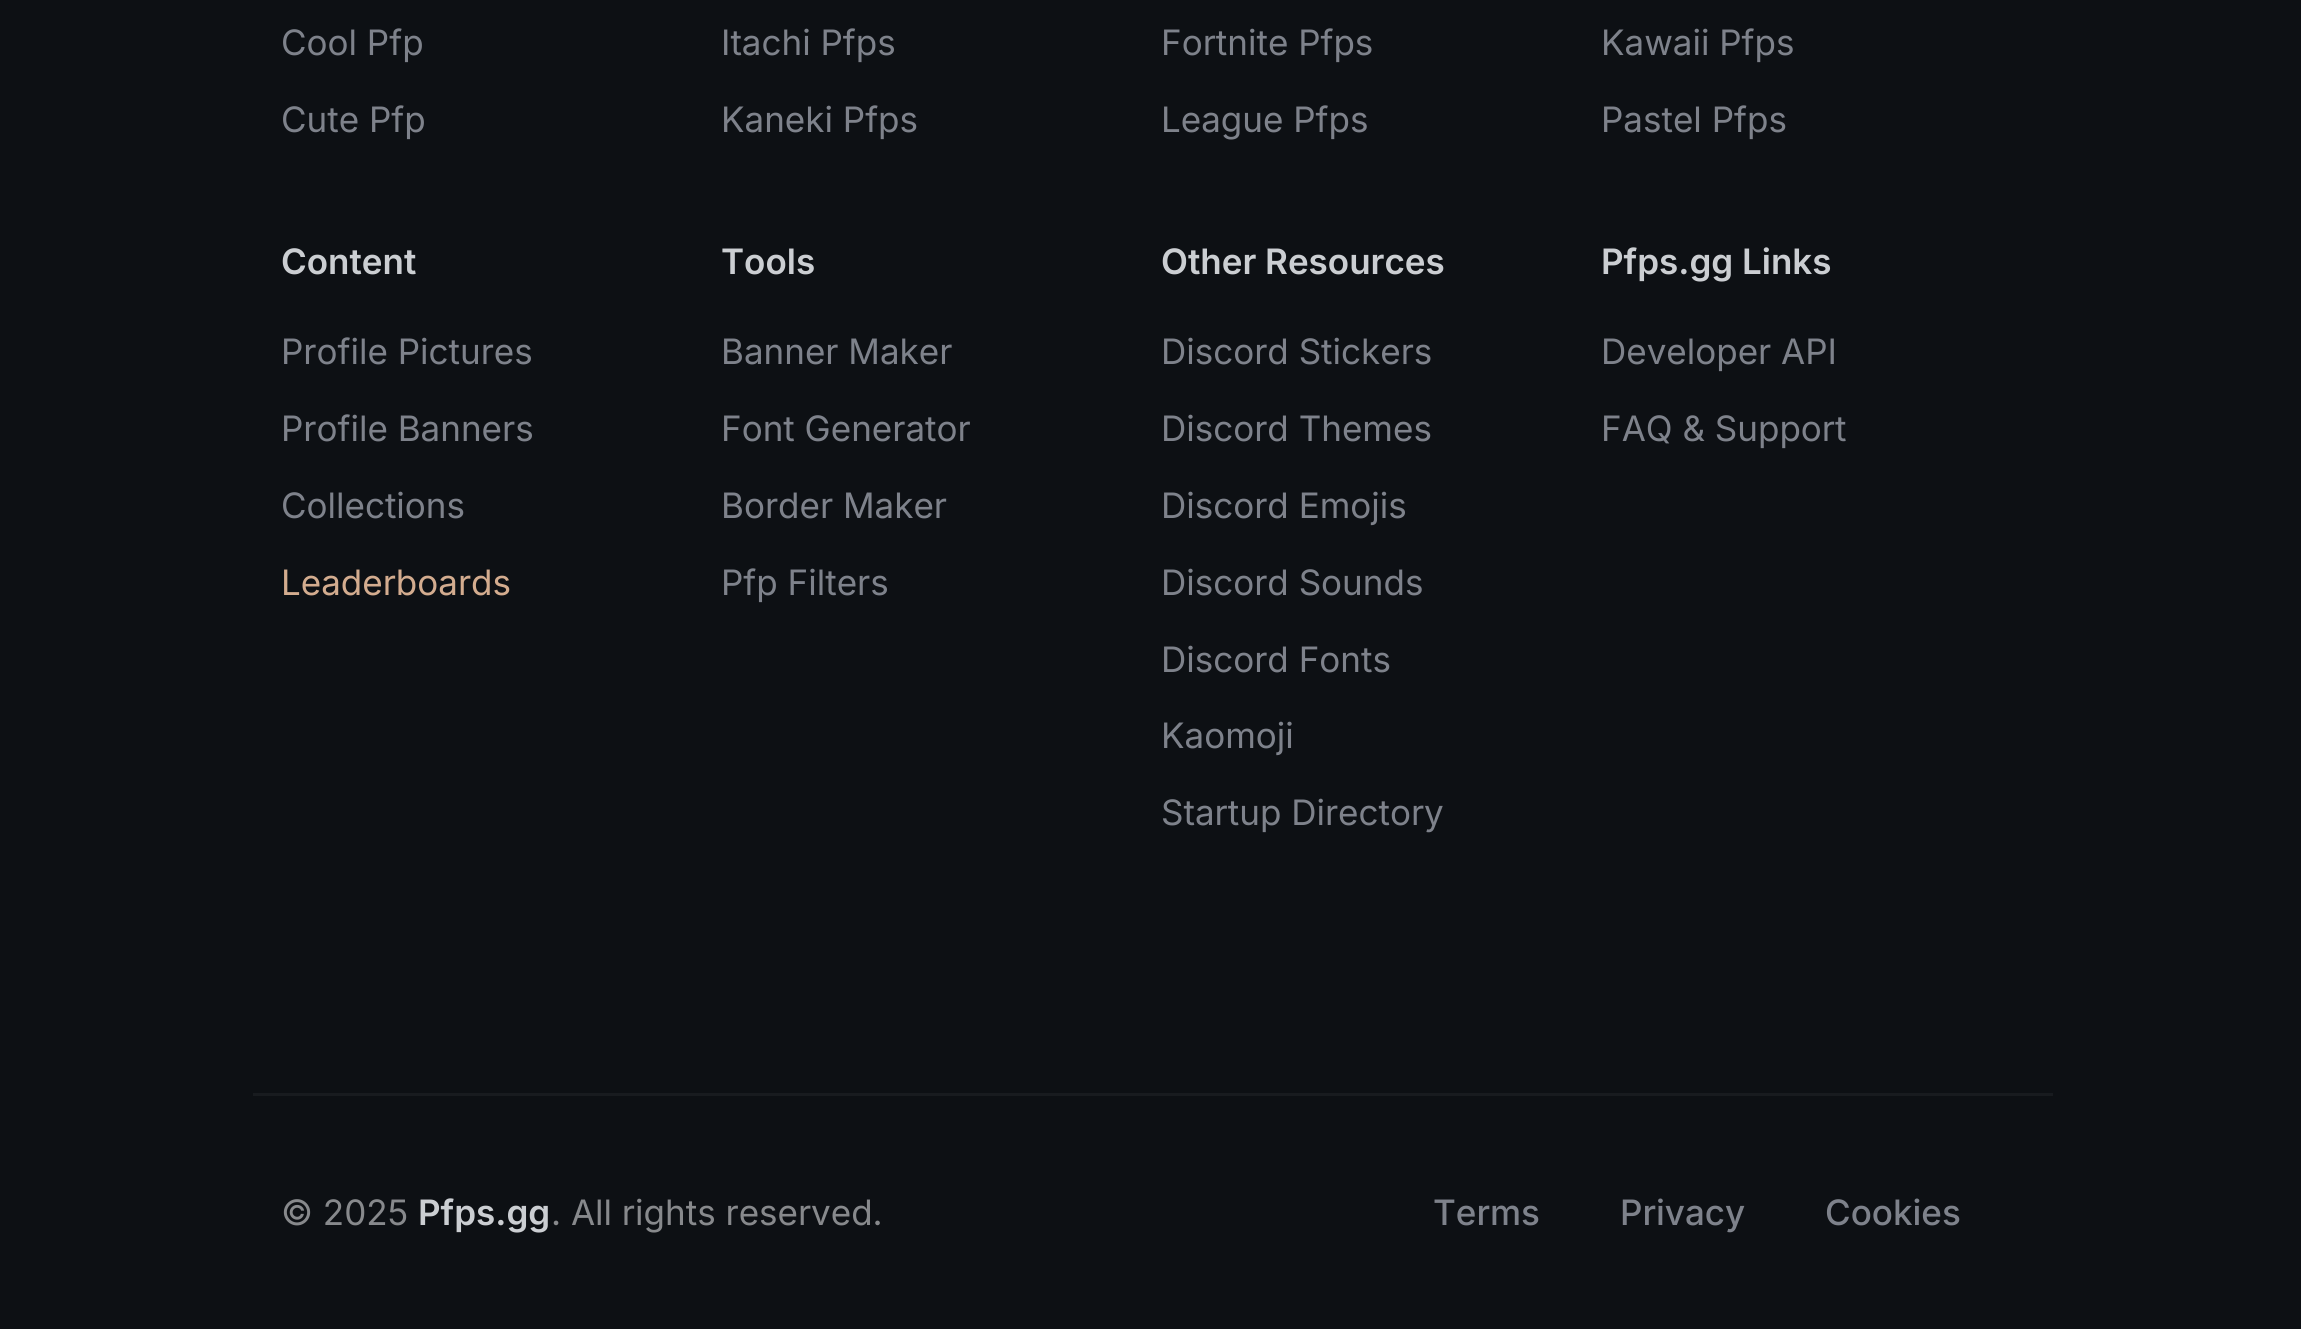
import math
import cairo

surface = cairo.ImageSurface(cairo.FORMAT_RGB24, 2301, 1329)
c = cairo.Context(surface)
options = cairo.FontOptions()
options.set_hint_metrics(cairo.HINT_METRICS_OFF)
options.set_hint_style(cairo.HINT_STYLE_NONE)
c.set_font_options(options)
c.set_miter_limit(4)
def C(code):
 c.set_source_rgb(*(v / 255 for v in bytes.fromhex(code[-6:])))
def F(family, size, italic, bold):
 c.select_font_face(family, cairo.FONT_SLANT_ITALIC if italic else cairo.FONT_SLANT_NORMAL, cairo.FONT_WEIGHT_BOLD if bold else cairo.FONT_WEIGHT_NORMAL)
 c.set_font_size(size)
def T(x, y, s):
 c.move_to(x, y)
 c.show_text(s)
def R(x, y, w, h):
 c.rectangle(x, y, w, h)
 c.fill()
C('0d1014')
c.paint()
F('Inter',35,0,0)
C('7e828b')
T(281,55,'Cool Pfp')
T(281,132,'Cute Pfp')
T(721,55,'Itachi Pfps')
T(721,132,'Kaneki Pfps')
T(1161,55,'Fortnite Pfps')
T(1161,132,'League Pfps')
T(1601,55,'Kawaii Pfps')
T(1601,132,'Pastel Pfps')
F('Inter SemiBold',35,0,0)
C('cbced2')
T(281,274,'Content')
F('Inter',35,0,0)
C('7e828b')
T(281,364,'Profile Pictures')
T(281,441,'Profile Banners')
T(281,518,'Collections')
C('d3ac8f')
T(281,595,'Leaderboards')
F('Inter SemiBold',35,0,0)
C('cbced2')
T(721,274,'Tools')
F('Inter',35,0,0)
C('7e828b')
T(721,364,'Banner Maker')
T(721,441,'Font Generator')
T(721,518,'Border Maker')
T(721,595,'Pfp Filters')
F('Inter SemiBold',35,0,0)
C('cbced2')
T(1161,274,'Other Resources')
F('Inter',35,0,0)
C('7e828b')
T(1161,364,'Discord Stickers')
T(1161,441,'Discord Themes')
T(1161,518,'Discord Emojis')
T(1161,595,'Discord Sounds')
T(1161,672,'Discord Fonts')
T(1161,748,'Kaomoji')
T(1161,825,'Startup Directory')
F('Inter SemiBold',35,0,0)
C('cbced2')
T(1601,274,'Pfps.gg Links')
F('Inter',35,0,0)
C('7e828b')
T(1601,364,'Developer API')
T(1601,441,'FAQ & Support')
C('181b1f')
R(253,1093,1800,3)
C('87898c')
T(281,1225,'© 2025')
F('Inter SemiBold',35,0,0)
C('cbced2')
T(418,1225,'Pfps.gg')
F('Inter',35,0,0)
C('87898c')
T(551,1225,'. All rights reserved.')
F('Inter Medium',35,0,0)
C('7e828b')
T(1433,1225,'Terms')
T(1620,1225,'Privacy')
T(1825,1225,'Cookies')
surface.write_to_png('o.png')
